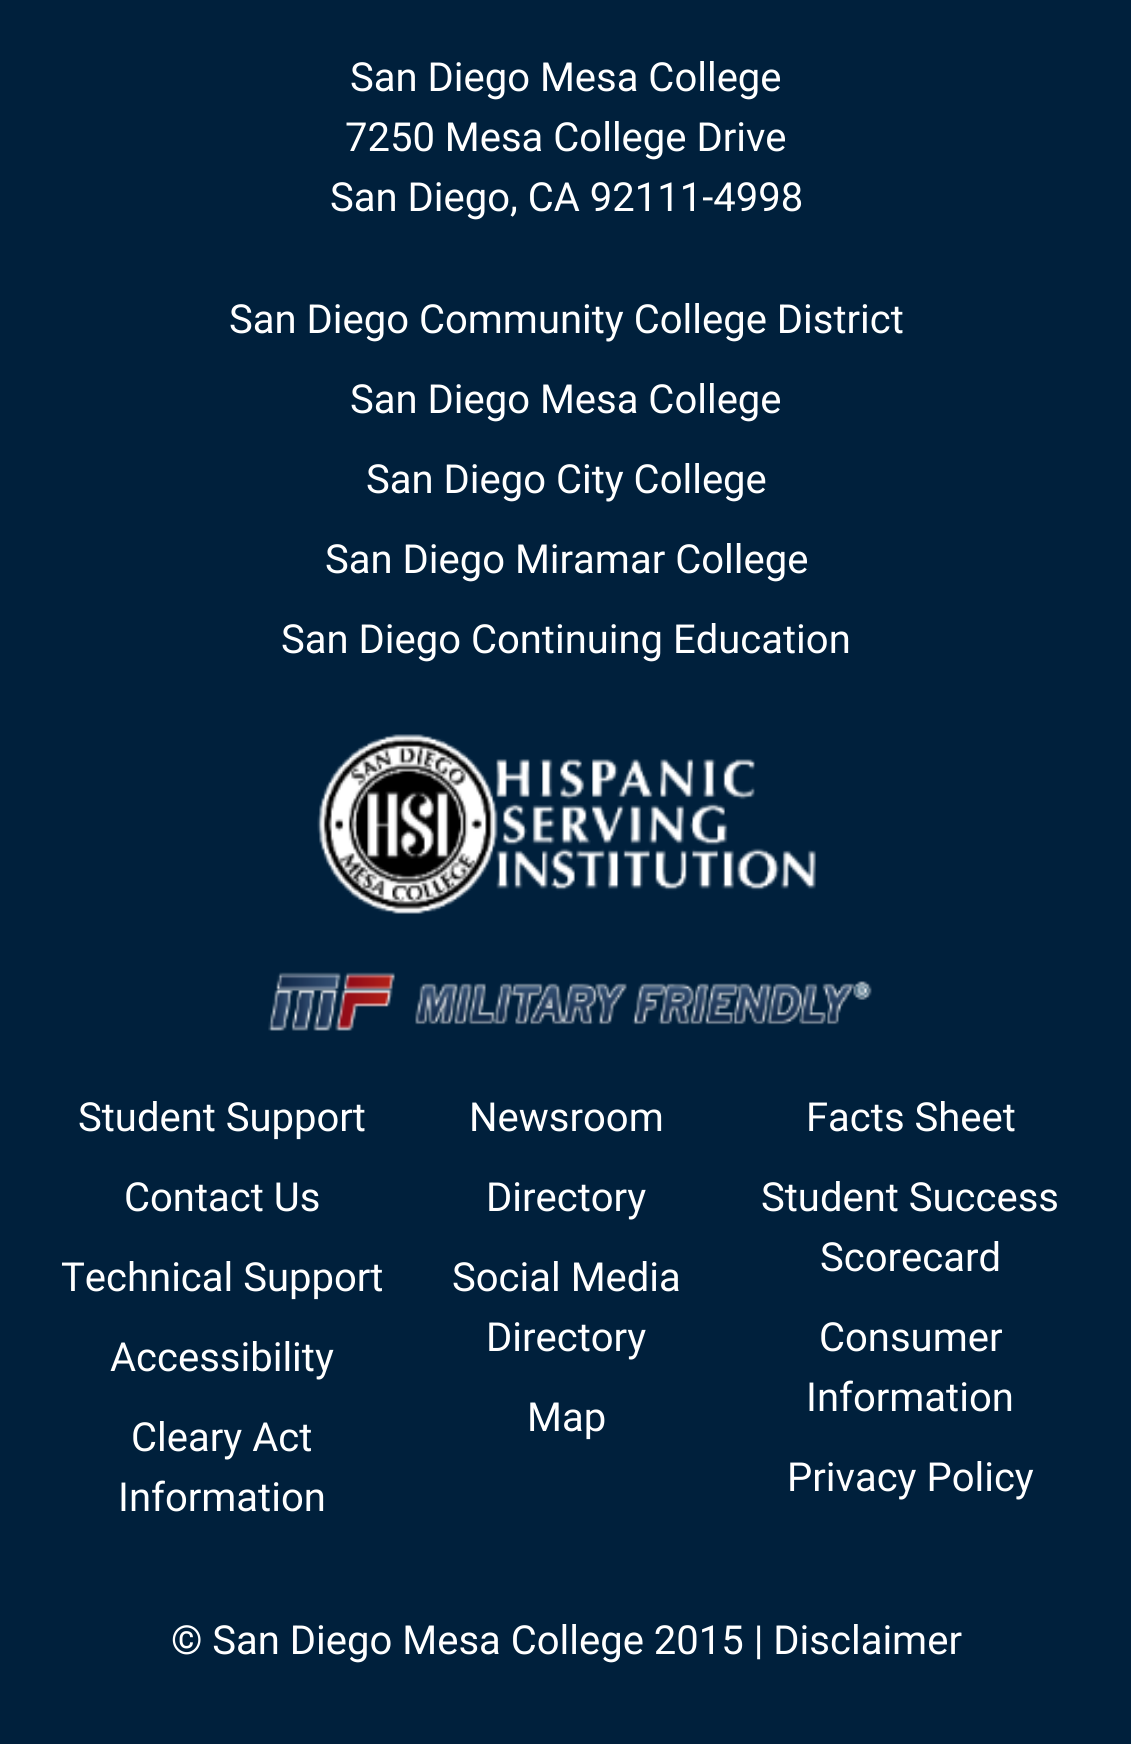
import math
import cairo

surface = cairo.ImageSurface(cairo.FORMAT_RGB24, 1131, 1744)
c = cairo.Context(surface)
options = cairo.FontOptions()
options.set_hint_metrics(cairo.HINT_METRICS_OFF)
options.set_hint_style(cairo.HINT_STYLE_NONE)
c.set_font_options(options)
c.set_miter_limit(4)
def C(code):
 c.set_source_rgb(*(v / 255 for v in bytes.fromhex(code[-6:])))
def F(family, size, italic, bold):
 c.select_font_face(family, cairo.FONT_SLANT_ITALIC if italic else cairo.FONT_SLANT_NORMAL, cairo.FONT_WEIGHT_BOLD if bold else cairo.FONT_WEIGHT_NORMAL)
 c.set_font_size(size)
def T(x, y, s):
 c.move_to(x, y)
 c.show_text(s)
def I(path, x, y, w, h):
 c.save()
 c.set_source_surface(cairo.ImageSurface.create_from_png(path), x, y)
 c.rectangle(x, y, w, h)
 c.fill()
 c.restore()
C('00203c')
c.paint()
F('Roboto',40,0,0)
C('ffffff')
T(350,91,'San Diego Mesa College')
T(345,151,'7250 Mesa College Drive')
T(330,211,'San Diego, CA 92111-4998')
T(229,333,'San Diego Community College District')
T(350,413,'San Diego Mesa College')
T(366,493,'San Diego City College')
T(325,573,'San Diego Miramar College')
T(281,653,'San Diego Continuing Education')
I('1.png',317,734,499,180)
I('2.png',268,972,604,59)
T(78,1131,'Student Support')
T(124,1211,'Contact Us')
T(61,1291,'Technical Support')
T(110,1371,'Accessibility')
T(131,1451,'Cleary Act')
T(118,1511,'Information')
T(469,1131,'Newsroom')
T(486,1211,'Directory')
T(452,1291,'Social Media')
T(486,1351,'Directory')
T(527,1431,'Map')
T(806,1131,'Facts Sheet')
T(761,1211,'Student Success')
T(820,1271,'Scorecard')
T(819,1351,'Consumer')
T(806,1411,'Information')
T(787,1491,'Privacy Policy')
T(171,1654,'© San Diego Mesa College 2015 | Disclaimer')
surface.write_to_png('o.png')
